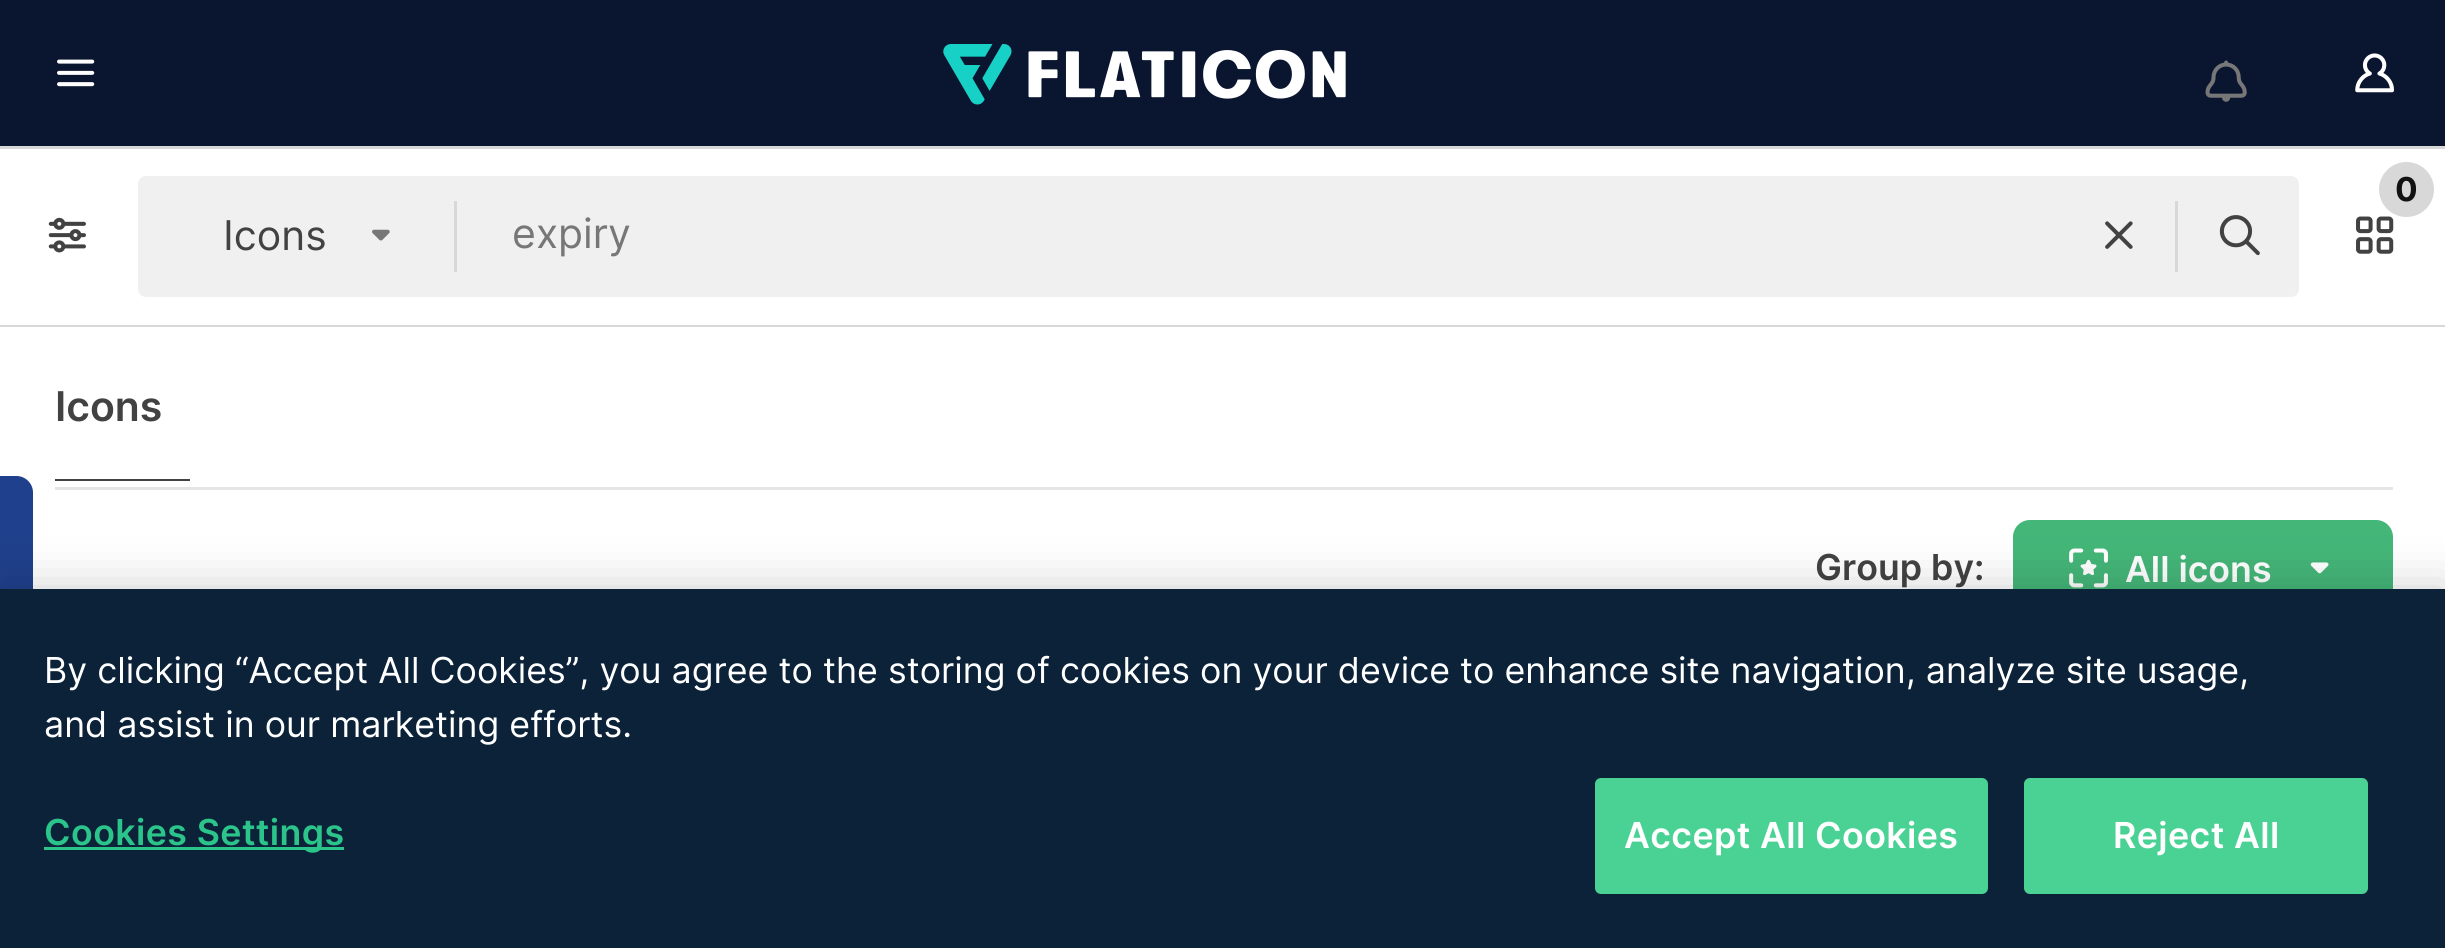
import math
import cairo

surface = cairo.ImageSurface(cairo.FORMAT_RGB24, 2445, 948)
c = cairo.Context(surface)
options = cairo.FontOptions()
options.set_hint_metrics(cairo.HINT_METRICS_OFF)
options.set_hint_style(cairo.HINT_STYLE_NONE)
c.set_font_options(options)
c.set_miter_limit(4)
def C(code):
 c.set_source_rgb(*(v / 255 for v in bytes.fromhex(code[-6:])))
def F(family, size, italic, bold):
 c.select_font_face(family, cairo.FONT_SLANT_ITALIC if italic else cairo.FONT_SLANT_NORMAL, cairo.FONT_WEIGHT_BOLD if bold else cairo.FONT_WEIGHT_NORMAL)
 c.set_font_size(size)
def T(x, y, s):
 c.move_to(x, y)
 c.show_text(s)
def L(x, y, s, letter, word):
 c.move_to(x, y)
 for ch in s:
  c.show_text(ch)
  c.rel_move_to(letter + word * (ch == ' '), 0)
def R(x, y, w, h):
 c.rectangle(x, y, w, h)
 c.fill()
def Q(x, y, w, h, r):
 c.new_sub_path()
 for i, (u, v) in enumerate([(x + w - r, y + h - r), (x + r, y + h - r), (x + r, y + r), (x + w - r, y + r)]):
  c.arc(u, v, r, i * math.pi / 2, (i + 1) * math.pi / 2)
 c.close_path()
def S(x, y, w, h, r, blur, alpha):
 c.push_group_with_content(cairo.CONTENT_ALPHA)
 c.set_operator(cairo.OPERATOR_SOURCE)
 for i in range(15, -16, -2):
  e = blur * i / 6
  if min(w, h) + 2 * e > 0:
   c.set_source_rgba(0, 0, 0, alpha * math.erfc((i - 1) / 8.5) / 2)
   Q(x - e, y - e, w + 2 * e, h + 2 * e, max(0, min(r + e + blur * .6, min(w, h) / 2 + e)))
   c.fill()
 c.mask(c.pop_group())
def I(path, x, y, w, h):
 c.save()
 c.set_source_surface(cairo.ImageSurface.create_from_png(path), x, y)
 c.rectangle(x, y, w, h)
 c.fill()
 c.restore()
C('ffffff')
c.paint()
C('0a152f')
R(0,0,2445,146)
I('1.png',57,59,38,28)
I('2.png',943,44,403,61)
I('3.png',2205,60,42,42)
I('4.png',2355,53,39,40)
c.rectangle(-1.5,147.5,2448,178)
C('d8d8d8')
c.set_line_width(3)
c.stroke()
C('ffffff')
R(0,324,2445,1)
I('5.png',2356,216,38,38)
C('d8d8d8')
c.arc(2406.5,189.5,27.5,0,2 * math.pi)
c.fill()
F('Inter',33,0,1)
C('121212')
T(2395,201,'0')
I('6.png',48,217,38,36)
C('f0f0f0')
Q(138,176,2161,121,8)
c.fill()
F('Inter',41,0,0)
C('424242')
T(223,250,'Icons')
I('7.png',372,229,18,12)
C('d8d8d8')
R(454,201,3,71)
C('777777')
T(512,248,'expiry')
I('8.png',2105,221,28,28)
C('d8d8d8')
R(2175,201,3,71)
I('9.png',2219,215,41,41)
C('424242')
R(55,479,135,2)
F('Inter SemiBold',41,0,0)
T(55,421,'Icons')
F('Inter SemiBold',35.75,0,0)
T(1815,580,'Group by:')
C('44b678')
Q(2013,520,380,99,17)
c.fill()
I('10.png',2069,548,39,40)
C('ffffff')
T(2125,582,'All icons')
I('11.png',2310,562,19,12)
C('e5e5e5')
R(55,487,2338,3)
C('1f408c')
c.new_path()
c.move_to(0,476)
c.line_to(16.5,476)
c.curve_to(25.5,476,33,483.5,33,492.5)
c.line_to(33,891.5)
c.curve_to(33,900.5,25.5,908,16.5,908)
c.line_to(0,908)
c.close_path()
c.fill()
C('000000')
S(0,589,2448,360,0,25,.2)
C('0b2239')
R(0,589,2445,359)
F('Inter',35.77,0,0)
C('ffffff')
T(44,683,'By clicking “Accept All Cookies”, you agree to the storing of cookies on your device to enhance site navigation, analyze site usage,')
T(44,737,'and assist in our marketing efforts.')
C('2bc48a')
R(44,847,300,3)
F('Inter SemiBold',35.77,0,0)
L(44,845,'Cookies Settings',.4,0)
C('4ad295')
Q(1596.5,779.5,390,113,4.5)
c.fill_preserve()
c.stroke()
C('ffffff')
L(1624,848,'Accept All Cookies',.4,0)
C('4ad295')
Q(2025.5,779.5,341,113,4.5)
c.fill_preserve()
c.stroke()
C('ffffff')
L(2113,848,'Reject All',.4,0)
surface.write_to_png('o.png')
